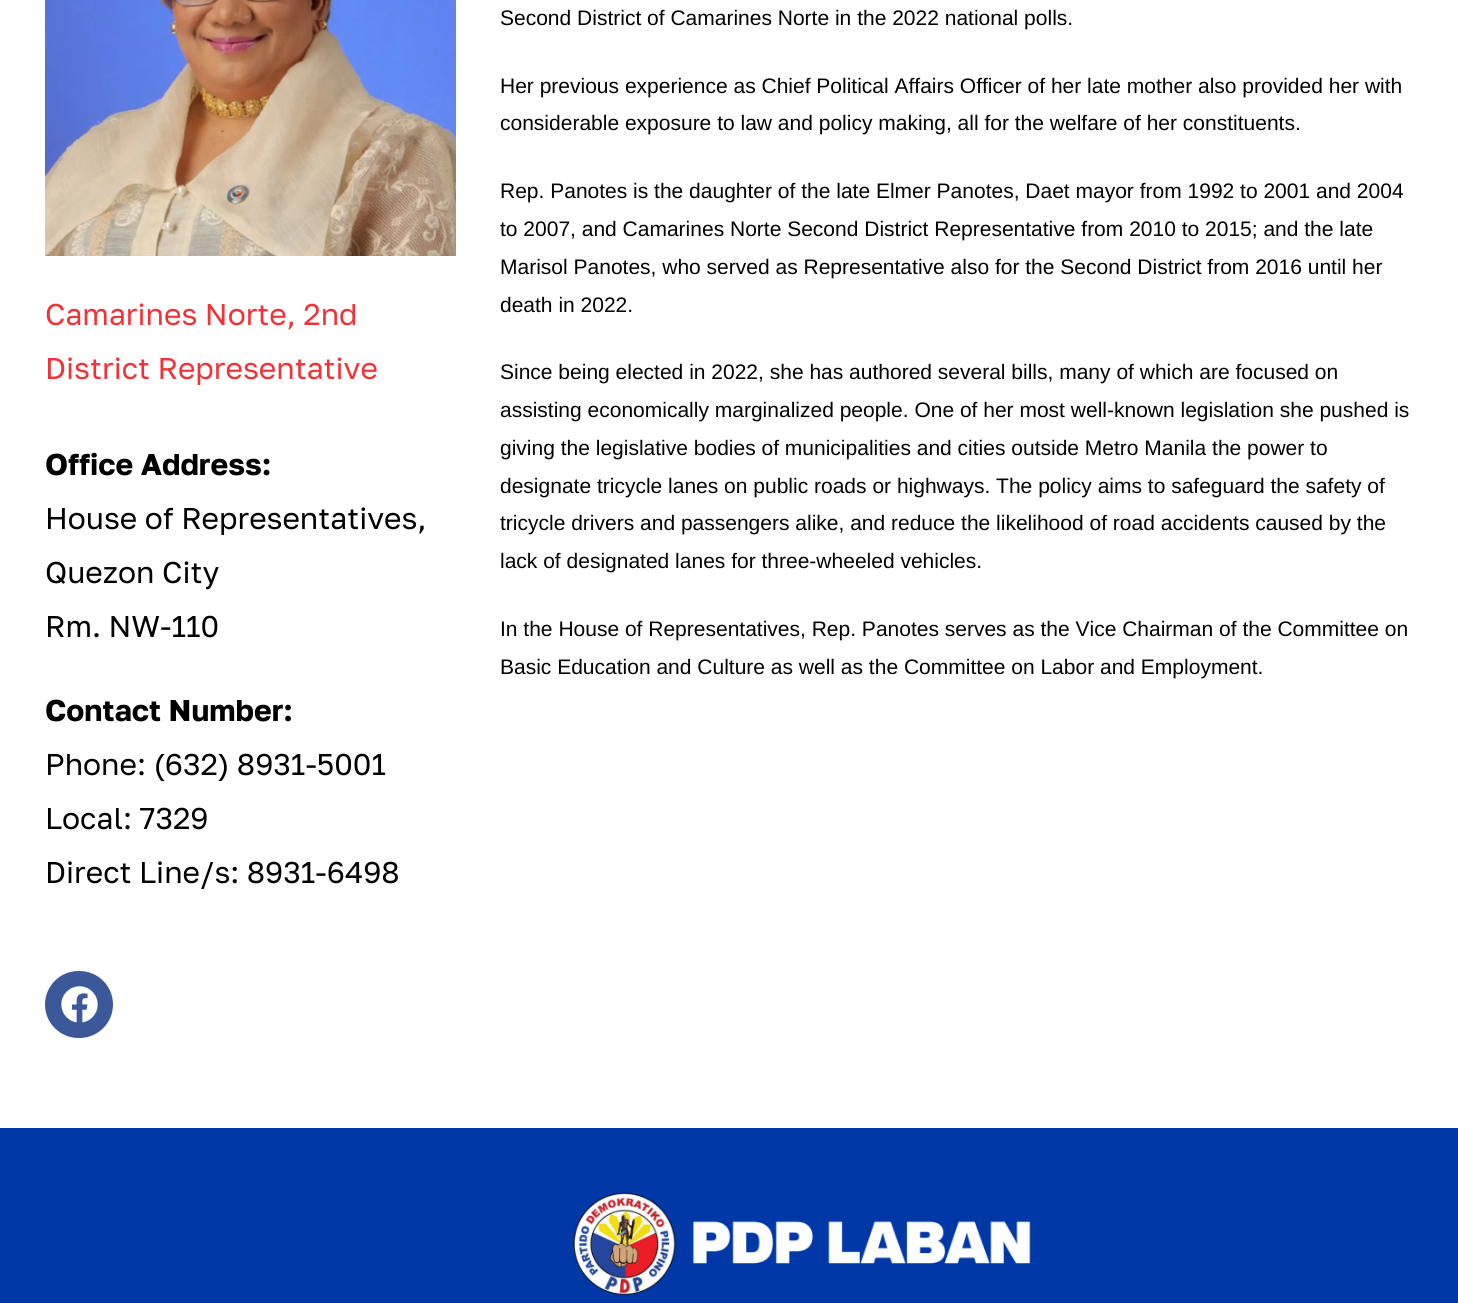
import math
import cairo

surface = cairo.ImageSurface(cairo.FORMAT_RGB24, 1458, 1303)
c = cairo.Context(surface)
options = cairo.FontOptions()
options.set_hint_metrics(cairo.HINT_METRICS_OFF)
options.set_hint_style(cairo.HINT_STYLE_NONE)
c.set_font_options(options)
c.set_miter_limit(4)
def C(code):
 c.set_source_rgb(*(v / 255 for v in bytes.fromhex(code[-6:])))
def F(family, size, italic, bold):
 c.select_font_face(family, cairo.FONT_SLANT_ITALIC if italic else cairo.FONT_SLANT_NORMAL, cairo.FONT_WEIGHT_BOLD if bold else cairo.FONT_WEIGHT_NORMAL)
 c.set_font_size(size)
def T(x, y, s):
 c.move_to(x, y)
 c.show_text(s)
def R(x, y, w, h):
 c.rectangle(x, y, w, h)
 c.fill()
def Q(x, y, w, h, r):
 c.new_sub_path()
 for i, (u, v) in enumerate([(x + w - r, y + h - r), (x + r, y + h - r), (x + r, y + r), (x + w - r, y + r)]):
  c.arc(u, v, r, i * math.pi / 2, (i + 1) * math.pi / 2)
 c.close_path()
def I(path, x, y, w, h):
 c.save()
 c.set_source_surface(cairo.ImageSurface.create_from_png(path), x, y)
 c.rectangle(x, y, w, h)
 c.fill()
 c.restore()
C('ffffff')
c.paint()
I('1.png',45,0,411,256)
F('Golos Text',30,0,0)
C('f03339')
T(45,325,'Camarines Norte, 2nd')
T(45,379,'District Representative')
F('Golos Text',30,0,1)
C('000000')
T(45,475,'Office Address:')
F('Golos Text',30,0,0)
T(45,529,'House of Representatives,')
T(45,583,'Quezon City')
T(45,637,'Rm. NW-110')
F('Golos Text',30,0,1)
T(45,721,'Contact Number:')
F('Golos Text',30,0,0)
T(45,775,'Phone: (632) 8931-5001')
T(45,829,'Local: 7329')
T(45,883,'Direct Line/s: 8931-6498')
C('3b5998')
Q(45,971,68,67,33.5)
c.fill()
I('2.png',61,986,37,37)
F('Liberation Sans',21,0,0)
C('000000')
T(500,25,'Second District of Camarines Norte in the 2022 national polls.')
T(500,93,'Her previous experience as Chief Political Affairs Officer of her late mother also provided her with')
T(500,130,'considerable exposure to law and policy making, all for the welfare of her constituents.')
T(500,198,'Rep. Panotes is the daughter of the late Elmer Panotes, Daet mayor from 1992 to 2001 and 2004')
T(500,236,'to 2007, and Camarines Norte Second District Representative from 2010 to 2015; and the late')
T(500,274,'Marisol Panotes, who served as Representative also for the Second District from 2016 until her')
T(500,312,'death in 2022.')
T(500,379,'Since being elected in 2022, she has authored several bills, many of which are focused on')
T(500,417,'assisting economically marginalized people. One of her most well-known legislation she pushed is')
T(500,455,'giving the legislative bodies of municipalities and cities outside Metro Manila the power to')
T(500,493,'designate tricycle lanes on public roads or highways. The policy aims to safeguard the safety of')
T(500,530,'tricycle drivers and passengers alike, and reduce the likelihood of road accidents caused by the')
T(500,568,'lack of designated lanes for three-wheeled vehicles.')
T(500,636,'In the House of Representatives, Rep. Panotes serves as the Vice Chairman of the Committee on')
T(500,674,'Basic Education and Culture as well as the Committee on Labor and Employment.')
C('0038a8')
R(0,1128,1458,175)
I('3.png',573,1192,458,104)
surface.write_to_png('o.png')
